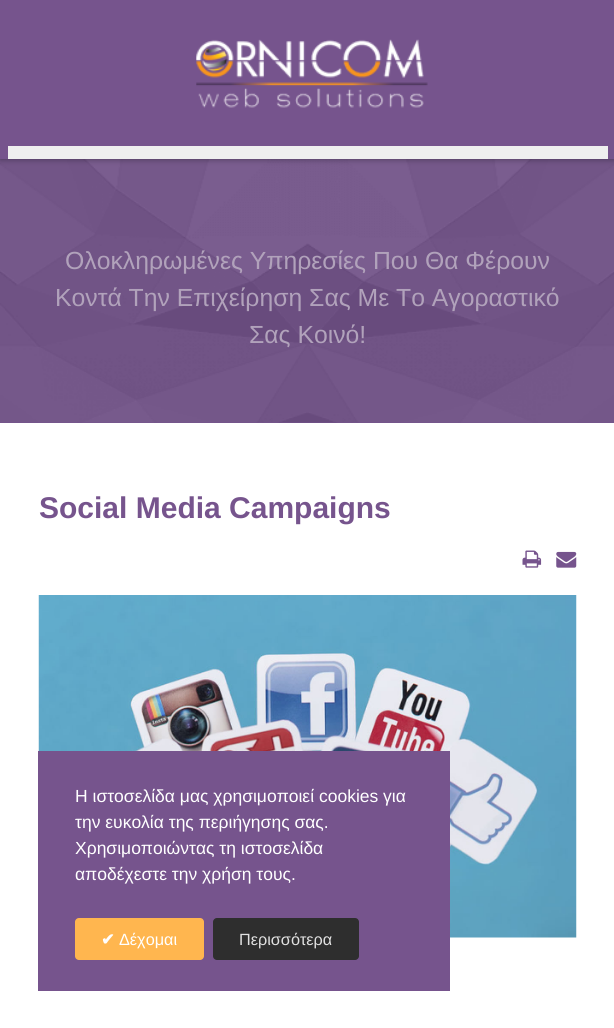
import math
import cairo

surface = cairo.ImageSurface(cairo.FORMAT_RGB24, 614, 1028)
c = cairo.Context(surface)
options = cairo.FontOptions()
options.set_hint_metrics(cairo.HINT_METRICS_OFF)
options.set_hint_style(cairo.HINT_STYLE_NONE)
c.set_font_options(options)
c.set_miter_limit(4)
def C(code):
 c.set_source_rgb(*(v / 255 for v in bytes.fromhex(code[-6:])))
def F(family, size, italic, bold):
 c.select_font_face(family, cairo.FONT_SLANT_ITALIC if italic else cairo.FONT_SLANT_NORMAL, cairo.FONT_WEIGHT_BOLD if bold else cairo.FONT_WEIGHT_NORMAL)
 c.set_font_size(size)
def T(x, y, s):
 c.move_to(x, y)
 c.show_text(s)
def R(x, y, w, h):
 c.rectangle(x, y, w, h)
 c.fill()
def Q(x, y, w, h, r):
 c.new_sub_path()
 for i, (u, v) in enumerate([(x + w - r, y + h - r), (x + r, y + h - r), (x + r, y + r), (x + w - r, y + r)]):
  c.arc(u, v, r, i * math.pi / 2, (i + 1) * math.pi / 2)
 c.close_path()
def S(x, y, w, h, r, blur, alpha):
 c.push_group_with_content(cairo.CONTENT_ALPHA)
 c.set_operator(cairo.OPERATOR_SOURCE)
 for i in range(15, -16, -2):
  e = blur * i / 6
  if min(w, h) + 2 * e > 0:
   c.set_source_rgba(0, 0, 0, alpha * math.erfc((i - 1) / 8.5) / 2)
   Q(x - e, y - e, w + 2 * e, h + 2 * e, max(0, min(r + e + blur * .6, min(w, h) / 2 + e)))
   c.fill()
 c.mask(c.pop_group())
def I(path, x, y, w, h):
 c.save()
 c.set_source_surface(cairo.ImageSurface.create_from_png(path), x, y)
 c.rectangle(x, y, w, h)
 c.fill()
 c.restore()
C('ffffff')
c.paint()
C('75548d')
R(0,159,614,264)
I('2.png',0,159,614,264)
C('000000')
S(0,1,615,159,0,3,.3)
C('76548d')
R(0,0,614,159)
I('1.png',196,39,232,69)
C('efefef')
R(8,146,600,13)
F('Liberation Sans',24.75,0,0)
C('b1a2bb')
T(65,269,'Ολοκληρωμένες Υπηρεσίες Που Θα Φέρουν')
T(55,306,'Κοντά Την Επιχείρηση Σας Με Το Αγοραστικό')
T(249,343,'Σας Κοινό!')
F('Liberation Sans',30,0,1)
C('76548d')
T(39,518,'Social Media Campaigns')
I('3.png',522,550,20,18)
I('4.png',556,551,21,17)
I('5.png',38,595,539,343)
R(38,751,412,240)
F('Liberation Sans',17.5,0,0)
C('ffffff')
T(75,802,'Η ιστοσελίδα μας χρησιμοποιεί cookies για')
T(75,828,'την ευκολία της περιήγησης σας.')
T(75,854,'Χρησιμοποιώντας τη ιστοσελίδα')
T(75,880,'αποδέχεστε την χρήση τους.')
C('ffb64f')
Q(75,918,129,42,4)
c.fill()
F('DejaVu Sans',16.25,0,1)
C('ffffff')
T(101,945,'✔')
F('Liberation Sans',16.25,0,0)
T(119,945,'Δέχομαι')
C('2e2e2e')
Q(213,918,146,42,4)
c.fill()
C('e0e0e0')
T(239,945,'Περισσότερα')
surface.write_to_png('o.png')
